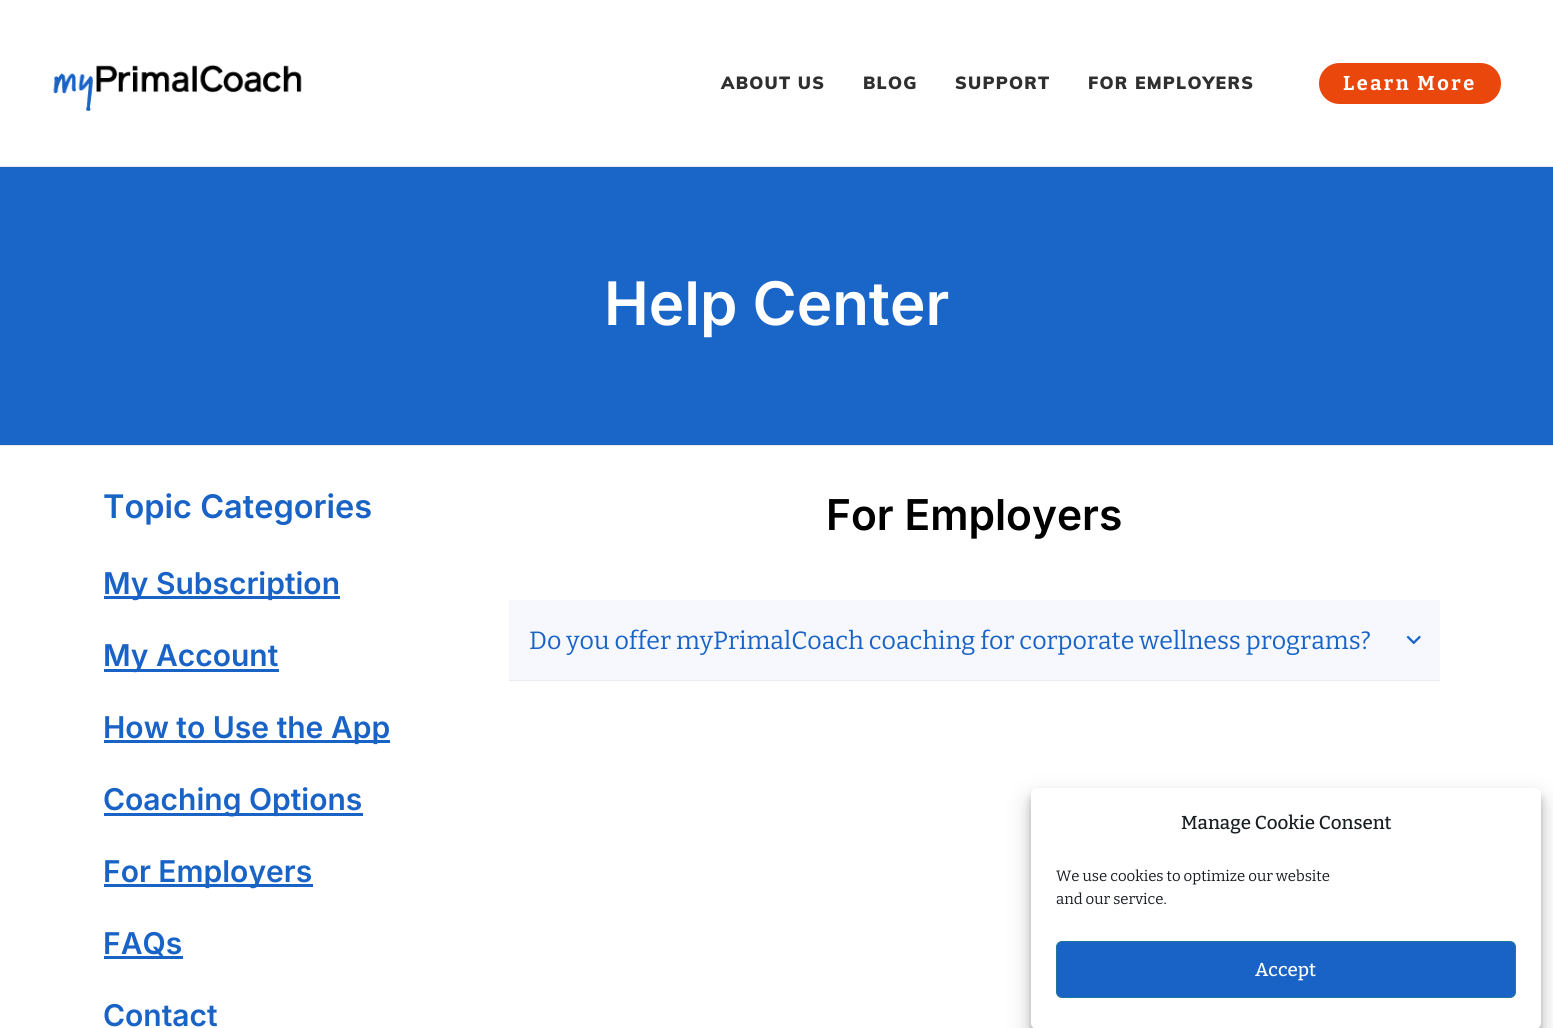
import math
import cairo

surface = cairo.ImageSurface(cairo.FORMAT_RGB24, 1553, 1028)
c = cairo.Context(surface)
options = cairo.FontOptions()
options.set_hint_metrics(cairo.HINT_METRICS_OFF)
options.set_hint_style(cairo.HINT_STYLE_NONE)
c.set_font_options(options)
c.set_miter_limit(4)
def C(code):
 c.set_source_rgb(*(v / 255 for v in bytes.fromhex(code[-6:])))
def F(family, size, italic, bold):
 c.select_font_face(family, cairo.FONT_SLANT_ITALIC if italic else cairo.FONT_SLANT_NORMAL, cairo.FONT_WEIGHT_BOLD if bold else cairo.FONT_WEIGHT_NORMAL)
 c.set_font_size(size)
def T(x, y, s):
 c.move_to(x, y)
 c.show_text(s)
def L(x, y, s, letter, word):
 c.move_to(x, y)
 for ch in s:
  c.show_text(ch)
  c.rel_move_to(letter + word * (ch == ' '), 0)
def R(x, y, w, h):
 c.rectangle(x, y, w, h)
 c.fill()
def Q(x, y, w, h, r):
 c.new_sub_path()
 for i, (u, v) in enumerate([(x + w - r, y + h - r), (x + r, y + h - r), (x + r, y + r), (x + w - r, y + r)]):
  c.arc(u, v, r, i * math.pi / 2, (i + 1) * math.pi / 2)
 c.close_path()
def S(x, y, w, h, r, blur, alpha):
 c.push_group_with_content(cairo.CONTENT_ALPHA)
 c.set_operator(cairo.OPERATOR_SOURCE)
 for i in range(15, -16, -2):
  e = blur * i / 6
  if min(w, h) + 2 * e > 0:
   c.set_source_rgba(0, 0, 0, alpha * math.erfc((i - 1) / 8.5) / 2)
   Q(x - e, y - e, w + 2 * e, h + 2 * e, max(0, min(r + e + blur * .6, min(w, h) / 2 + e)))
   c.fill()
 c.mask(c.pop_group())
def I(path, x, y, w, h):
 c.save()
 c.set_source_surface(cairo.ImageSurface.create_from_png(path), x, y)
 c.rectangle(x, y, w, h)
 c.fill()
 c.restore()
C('ffffff')
c.paint()
I('1.png',53,64,249,47)
F('Muli Black',17.5,0,0)
C('2f2f2f')
L(721,89,'ABOUT US',1.25,0)
L(863,89,'BLOG',1.25,0)
L(955,89,'SUPPORT',1.25,0)
L(1088,89,'FOR EMPLOYERS',1.25,0)
C('ea470d')
Q(1319,63,182,41,20.5)
c.fill()
F('Bitter',20,0,1)
C('ffffff')
L(1343,90,'Learn More',2.5,0)
C('1965c8')
R(0,167,1553,278)
C('e6e6e6')
R(0,166,1553,1)
R(0,445,1553,1)
F('Inter SemiBold',60,0,0)
C('ffffff')
T(604,325,'Help Center')
F('Inter SemiBold',32.5,0,0)
C('1963c6')
T(103,518,'Topic Categories')
R(104,596,236,3)
F('Inter SemiBold',30,0,0)
T(103,594,'My Subscription')
R(104,669,175,3)
T(103,666,'My Account')
R(104,740,286,3)
T(103,738,'How to Use the App')
R(104,813,259,3)
T(103,810,'Coaching Options')
R(104,884,209,3)
T(103,882,'For Employers')
T(103,954,'FAQs')
R(104,956,79,3)
T(103,1026,'Contact')
F('Inter SemiBold',42.5,0,0)
C('000000')
T(826,530,'For Employers')
C('f6f8fe')
R(509,600,931,80)
C('eaecf1')
R(509,680,931,1)
F('Bitter',25,0,0)
C('1963c6')
T(529,649,'Do you offer myPrimalCoach coaching for corporate wellness programs?')
I('2.png',1406,635,15,10)
C('000000')
S(1031,795,510,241,6,4,.23)
S(1031,800,510,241,6,12.5,.19)
C('ffffff')
Q(1031,788,510,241,6)
c.fill()
F('Bitter Medium',18.75,0,0)
C('191e23')
T(1181,829,'Manage Cookie Consent')
F('Bitter',15,0,0)
T(1056,881,'We use cookies to optimize our website')
T(1056,904,'and our service.')
C('1963c6')
Q(1056.5,941.5,459,56,5.5)
c.fill_preserve()
C('21759b')
c.set_line_width(1)
c.stroke()
F('Bitter Medium',18.75,0,0)
C('ffffff')
T(1255,976,'Accept')
surface.write_to_png('o.png')
